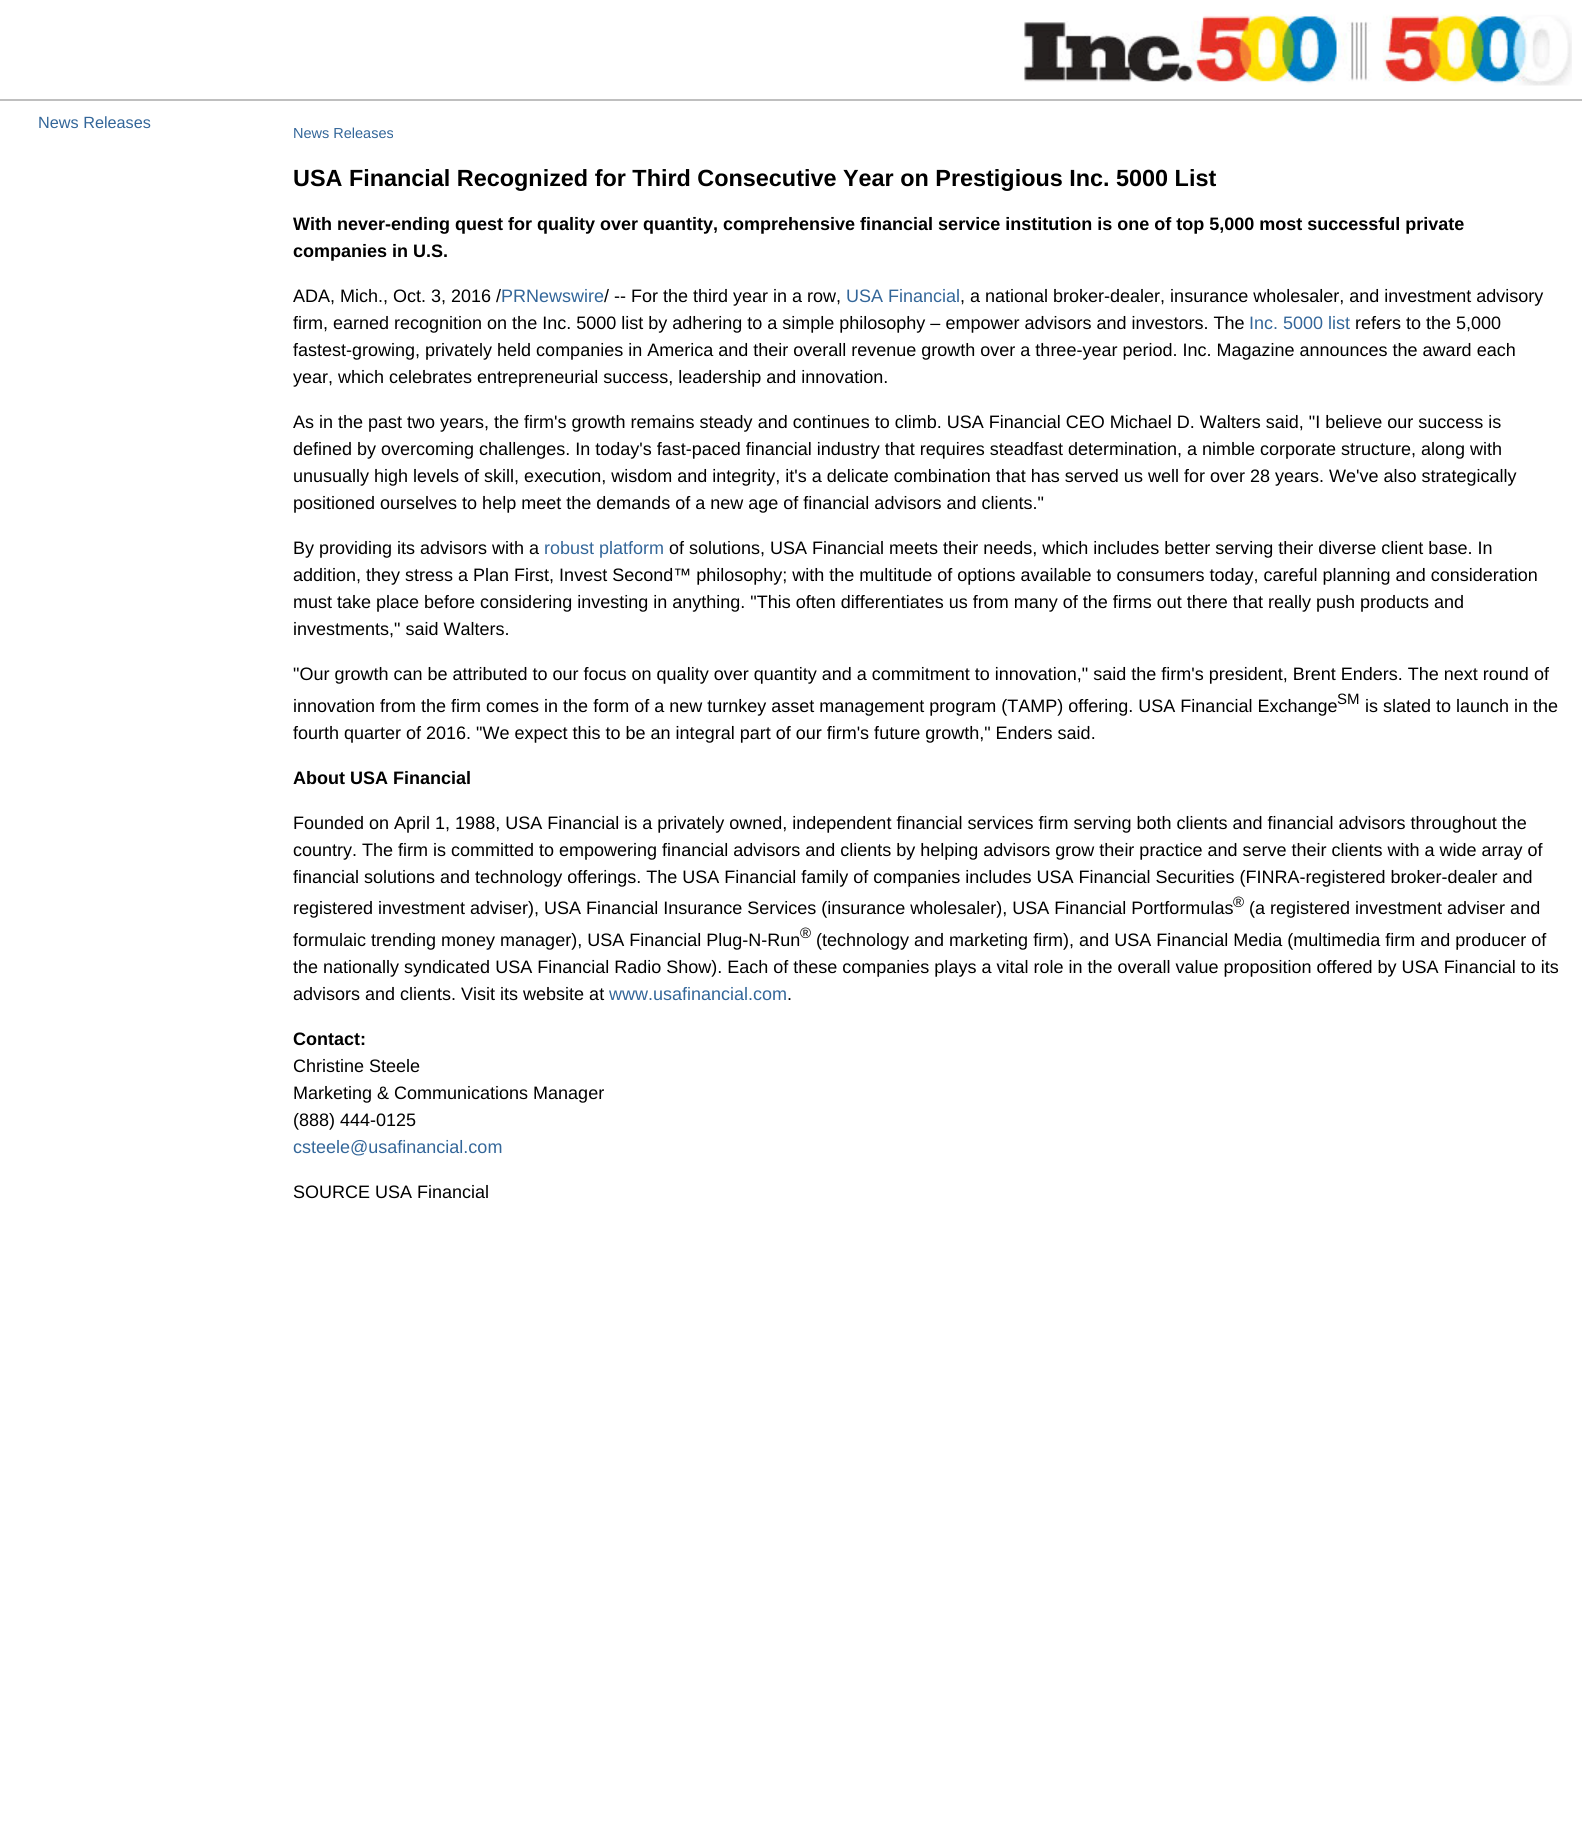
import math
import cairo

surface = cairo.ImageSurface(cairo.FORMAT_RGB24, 1582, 1836)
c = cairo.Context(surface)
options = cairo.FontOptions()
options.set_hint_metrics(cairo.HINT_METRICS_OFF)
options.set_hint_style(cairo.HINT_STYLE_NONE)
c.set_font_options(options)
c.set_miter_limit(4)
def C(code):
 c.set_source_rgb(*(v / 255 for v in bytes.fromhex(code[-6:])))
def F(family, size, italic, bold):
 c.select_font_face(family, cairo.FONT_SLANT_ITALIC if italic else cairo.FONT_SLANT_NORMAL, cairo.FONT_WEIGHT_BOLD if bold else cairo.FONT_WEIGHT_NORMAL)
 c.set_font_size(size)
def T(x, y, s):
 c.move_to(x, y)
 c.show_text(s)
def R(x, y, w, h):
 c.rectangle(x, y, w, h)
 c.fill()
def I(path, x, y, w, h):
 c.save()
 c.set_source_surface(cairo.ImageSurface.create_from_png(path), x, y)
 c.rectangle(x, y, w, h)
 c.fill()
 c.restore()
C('ffffff')
c.paint()
C('bfbfbf')
R(0,99,1582,2)
I('1.png',1024,14,548,72)
F('Liberation Sans',16.25,0,0)
C('336699')
T(38,128,'News Releases')
F('Liberation Sans',14.5,0,0)
T(293,138,'News Releases')
F('Liberation Sans',23.4,0,1)
C('000000')
T(293,186,'USA Financial Recognized for Third Consecutive Year on Prestigious Inc. 5000 List')
F('Liberation Sans',18,0,1)
T(293,230,'With never-ending quest for quality over quantity, comprehensive financial service institution is one of top 5,000 most successful private')
T(293,257,'companies in U.S.')
F('Liberation Sans',18,0,0)
T(293,302,'ADA, Mich., Oct. 3, 2016 /')
C('336699')
T(501,302,'PRNewswire')
C('000000')
T(604,302,'/ -- For the third year in a row,')
C('336699')
T(846,302,'USA Financial')
C('000000')
T(960,302,', a national broker-dealer, insurance wholesaler, and investment advisory')
T(293,329,'firm, earned recognition on the Inc. 5000 list by adhering to a simple philosophy – empower advisors and investors. The')
C('336699')
T(1249,329,'Inc. 5000 list')
C('000000')
T(1355,329,'refers to the 5,000')
T(293,356,'fastest-growing, privately held companies in America and their overall revenue growth over a three-year period. Inc. Magazine announces the award each')
T(293,383,'year, which celebrates entrepreneurial success, leadership and innovation.')
T(293,428,'As in the past two years, the firm\'s growth remains steady and continues to climb. USA Financial CEO Michael D. Walters said, "I believe our success is')
T(293,455,'defined by overcoming challenges. In today\'s fast-paced financial industry that requires steadfast determination, a nimble corporate structure, along with')
T(293,482,'unusually high levels of skill, execution, wisdom and integrity, it\'s a delicate combination that has served us well for over 28 years. We\'ve also strategically')
T(293,509,'positioned ourselves to help meet the demands of a new age of financial advisors and clients."')
T(293,554,'By providing its advisors with a')
C('336699')
T(544,554,'robust platform')
C('000000')
T(669,554,'of solutions, USA Financial meets their needs, which includes better serving their diverse client base. In')
T(293,581,'addition, they stress a Plan First, Invest Second™ philosophy; with the multitude of options available to consumers today, careful planning and consideration')
T(293,608,'must take place before considering investing in anything. "This often differentiates us from many of the firms out there that really push products and')
T(293,635,'investments," said Walters.')
T(293,680,'"Our growth can be attributed to our focus on quality over quantity and a commitment to innovation," said the firm\'s president, Brent Enders. The next round of')
T(293,712,'innovation from the firm comes in the form of a new turnkey asset management program (TAMP) offering. USA Financial Exchange')
F('Liberation Sans',15,0,0)
T(1337,704,'SM')
F('Liberation Sans',18,0,0)
T(1365,712,'is slated to launch in the')
T(293,739,'fourth quarter of 2016. "We expect this to be an integral part of our firm\'s future growth," Enders said.')
F('Liberation Sans',18,0,1)
T(293,784,'About USA Financial')
F('Liberation Sans',18,0,0)
T(293,829,'Founded on April 1, 1988, USA Financial is a privately owned, independent financial services firm serving both clients and financial advisors throughout the')
T(293,856,'country. The firm is committed to empowering financial advisors and clients by helping advisors grow their practice and serve their clients with a wide array of')
T(293,883,'financial solutions and technology offerings. The USA Financial family of companies includes USA Financial Securities (FINRA-registered broker-dealer and')
T(293,914,'registered investment adviser), USA Financial Insurance Services (insurance wholesaler), USA Financial Portformulas')
F('Liberation Sans',15,0,0)
T(1233,907,'®')
F('Liberation Sans',18,0,0)
T(1249,914,'(a registered investment adviser and')
T(293,946,'formulaic trending money manager), USA Financial Plug-N-Run')
F('Liberation Sans',15,0,0)
T(800,938,'®')
F('Liberation Sans',18,0,0)
T(816,946,'(technology and marketing firm), and USA Financial Media (multimedia firm and producer of')
T(293,973,'the nationally syndicated USA Financial Radio Show). Each of these companies plays a vital role in the overall value proposition offered by USA Financial to its')
T(293,1000,'advisors and clients. Visit its website at')
C('336699')
T(609,1000,'www.usafinancial.com')
C('000000')
T(787,1000,'.')
F('Liberation Sans',18,0,1)
T(293,1045,'Contact:')
F('Liberation Sans',18,0,0)
T(293,1072,'Christine Steele')
T(293,1099,'Marketing & Communications Manager')
T(293,1126,'(888) 444-0125')
C('336699')
T(293,1153,'csteele@usafinancial.com')
C('000000')
T(293,1198,'SOURCE USA Financial')
surface.write_to_png('o.png')
